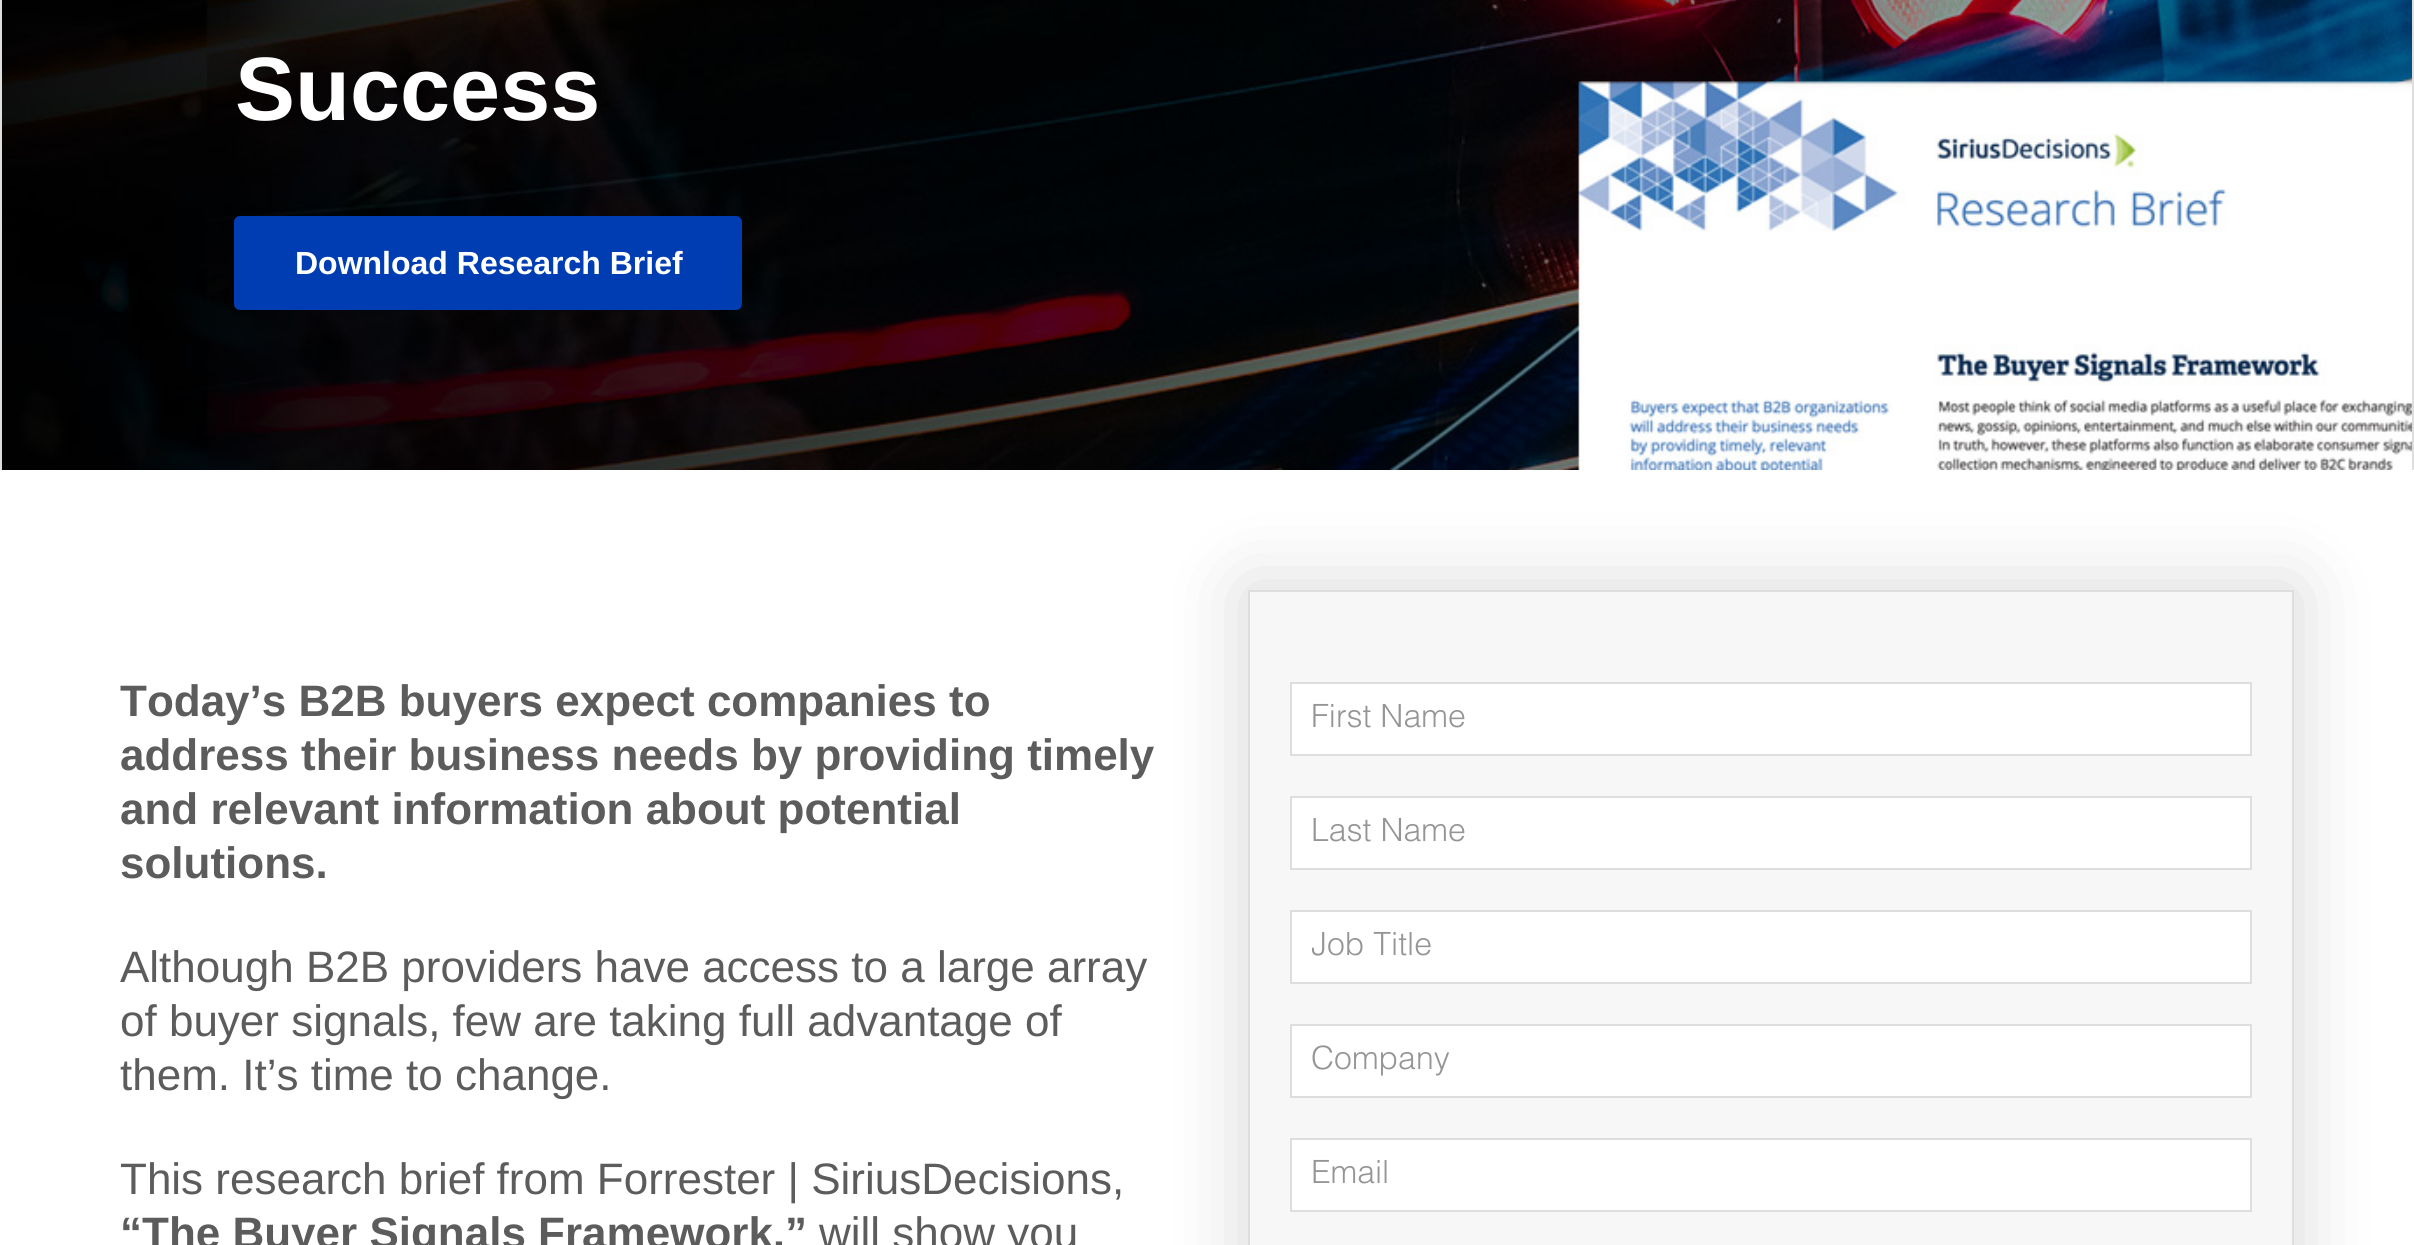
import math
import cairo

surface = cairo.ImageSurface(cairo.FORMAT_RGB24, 2414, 1245)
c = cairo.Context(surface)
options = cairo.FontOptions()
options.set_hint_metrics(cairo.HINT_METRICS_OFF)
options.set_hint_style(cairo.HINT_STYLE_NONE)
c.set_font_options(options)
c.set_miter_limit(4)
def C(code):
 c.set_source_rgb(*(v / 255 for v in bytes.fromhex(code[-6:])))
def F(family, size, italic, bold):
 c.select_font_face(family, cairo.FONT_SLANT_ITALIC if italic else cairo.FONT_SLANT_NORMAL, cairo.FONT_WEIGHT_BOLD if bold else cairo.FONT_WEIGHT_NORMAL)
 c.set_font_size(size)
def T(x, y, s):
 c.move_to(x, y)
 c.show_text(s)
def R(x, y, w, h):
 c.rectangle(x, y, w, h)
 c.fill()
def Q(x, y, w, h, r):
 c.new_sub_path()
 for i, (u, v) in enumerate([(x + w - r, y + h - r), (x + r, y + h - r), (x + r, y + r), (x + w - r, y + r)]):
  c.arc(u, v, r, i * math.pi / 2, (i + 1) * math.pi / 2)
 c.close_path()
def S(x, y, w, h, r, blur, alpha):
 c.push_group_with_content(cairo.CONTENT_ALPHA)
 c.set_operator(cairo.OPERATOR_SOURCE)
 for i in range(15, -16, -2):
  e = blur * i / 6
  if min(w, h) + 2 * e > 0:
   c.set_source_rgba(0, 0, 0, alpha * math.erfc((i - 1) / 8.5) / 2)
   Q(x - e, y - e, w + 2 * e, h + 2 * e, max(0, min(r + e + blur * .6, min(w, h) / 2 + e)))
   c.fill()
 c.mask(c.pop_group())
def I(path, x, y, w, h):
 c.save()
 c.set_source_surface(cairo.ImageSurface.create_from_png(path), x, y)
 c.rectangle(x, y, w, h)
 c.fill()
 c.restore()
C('dedede')
c.paint()
I('1.png',2,0,2410,470)
F('Liberation Sans',90,0,1)
C('ffffff')
T(235,120,'Success')
C('003cb2')
Q(234,216,508,94,6)
c.fill()
F('Liberation Sans',32,0,1)
C('ffffff')
T(295,274,'Download Research Brief')
R(0,470,2414,775)
F('Liberation Sans',44,0,1)
C('5c5c5c')
T(120,716,'Today’s B2B buyers expect companies to')
T(120,770,'address their business needs by providing timely')
T(120,824,'and relevant information about potential')
T(120,878,'solutions.')
F('Liberation Sans',44,0,0)
T(120,982,'Although B2B providers have access to a large array')
T(120,1036,'of buyer signals, few are taking full advantage of')
T(120,1090,'them. It’s time to change.')
T(120,1194,'This research brief from Forrester | SiriusDecisions,')
F('Liberation Sans',44,0,1)
T(120,1248,'“The Buyer Signals Framework,”')
F('Liberation Sans',44,0,0)
T(819,1248,'will show you')
C('000000')
S(1244,586,1054,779,0,40,.15)
C('f7f7f7')
c.rectangle(1249,591,1044,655)
c.fill_preserve()
C('dedede')
c.stroke()
C('ffffff')
c.rectangle(1291,683,960,72)
c.fill_preserve()
C('dedede')
c.stroke()
F('Helvetica Light',32,0,0)
C('959595')
T(1311,727,'First Name')
C('ffffff')
c.rectangle(1291,797,960,72)
c.fill_preserve()
C('dedede')
c.stroke()
C('959595')
T(1311,841,'Last Name')
C('ffffff')
c.rectangle(1291,911,960,72)
c.fill_preserve()
C('dedede')
c.stroke()
c.save()
c.rectangle(1312,930,918,32)
c.clip()
C('959595')
T(1311,955,'Job Title')
c.restore()
C('ffffff')
c.rectangle(1291,1025,960,72)
c.fill_preserve()
C('dedede')
c.stroke()
C('959595')
T(1311,1069,'Company')
C('ffffff')
c.rectangle(1291,1139,960,72)
c.fill_preserve()
C('dedede')
c.stroke()
C('959595')
T(1311,1183,'Email')
surface.write_to_png('o.png')
